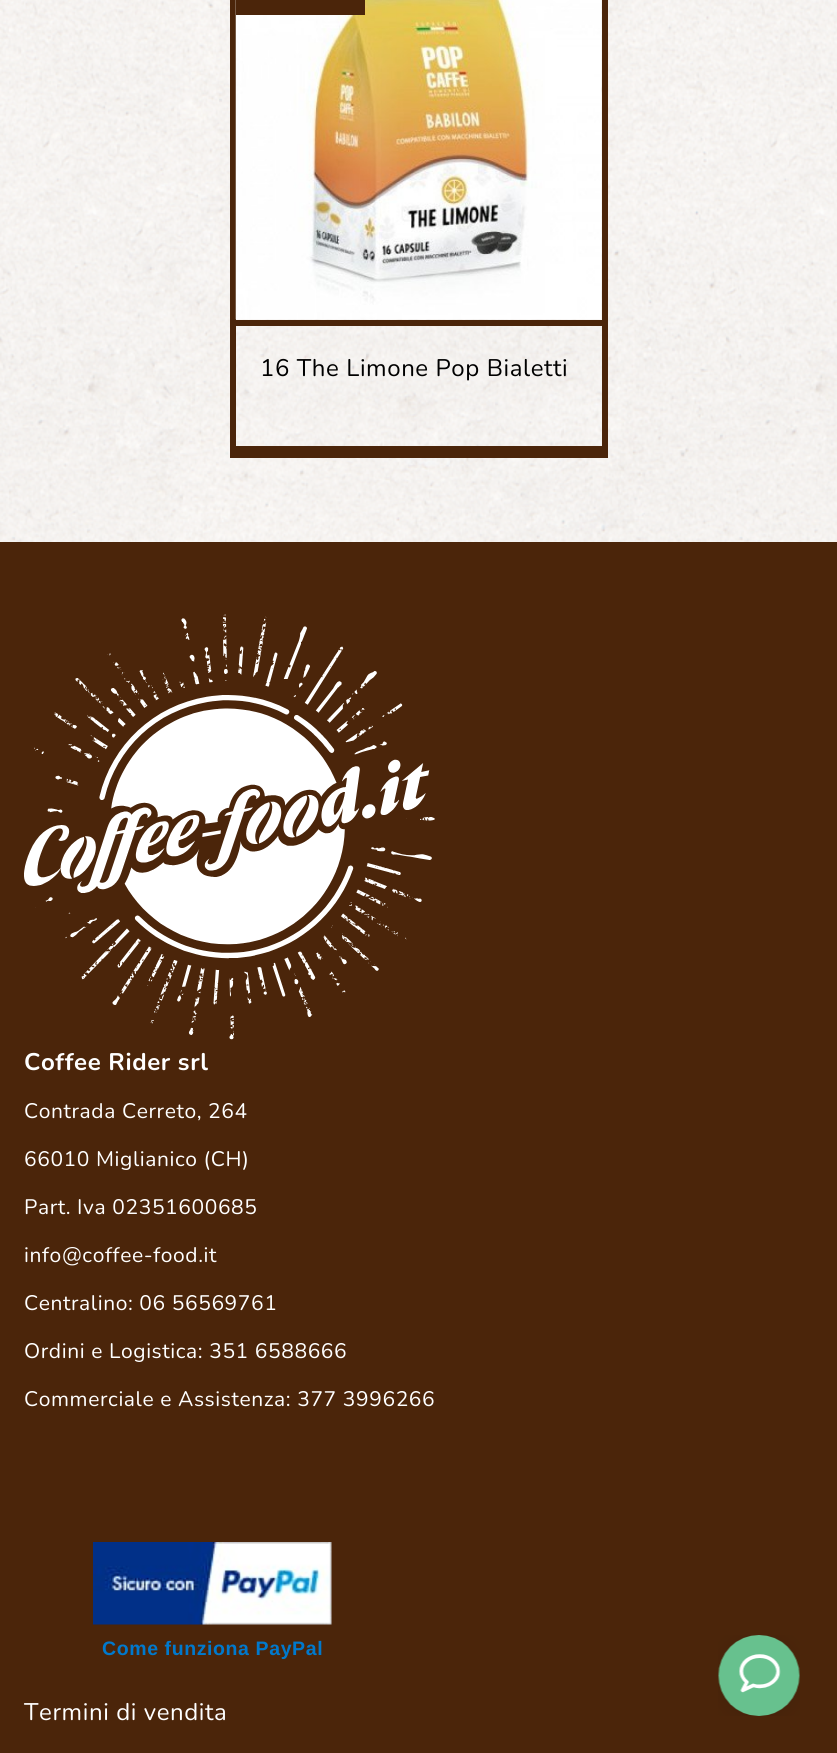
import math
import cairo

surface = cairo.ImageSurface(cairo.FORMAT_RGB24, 837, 1753)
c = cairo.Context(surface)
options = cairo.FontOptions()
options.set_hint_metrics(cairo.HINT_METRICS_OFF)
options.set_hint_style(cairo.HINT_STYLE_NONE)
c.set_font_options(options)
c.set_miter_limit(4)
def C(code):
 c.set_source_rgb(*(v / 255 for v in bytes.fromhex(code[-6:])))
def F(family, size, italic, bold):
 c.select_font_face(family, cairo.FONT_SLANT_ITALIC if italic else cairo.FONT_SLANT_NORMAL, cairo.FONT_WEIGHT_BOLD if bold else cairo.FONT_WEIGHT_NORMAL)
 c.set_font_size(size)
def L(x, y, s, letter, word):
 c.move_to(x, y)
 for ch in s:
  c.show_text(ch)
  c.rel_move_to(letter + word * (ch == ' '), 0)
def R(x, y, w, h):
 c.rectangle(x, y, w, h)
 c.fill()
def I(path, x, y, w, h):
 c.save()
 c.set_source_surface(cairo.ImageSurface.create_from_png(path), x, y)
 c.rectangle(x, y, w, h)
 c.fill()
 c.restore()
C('ffffff')
c.paint()
I('1.png',0,0,837,542)
c.rectangle(233,-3,372,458)
C('4b250a')
c.set_line_width(6)
c.stroke()
R(236,320,366,6)
I('2.png',235,0,367,320)
R(236,0,129,15)
R(236,446,366,6)
F('Nunito',24,0,0)
C('000000')
L(260,376,'16 The Limone Pop Bialetti',.6,0)
C('4b250a')
R(0,542,837,1211)
I('3.png',24,614,411,426)
F('Nunito',24,0,1)
C('ffffff')
L(24,1070,'Coffee Rider srl',.6,0)
F('Nunito',21,0,0)
L(24,1118,'Contrada Cerreto, 264',.6,0)
L(24,1166,'66010 Miglianico (CH)',.6,0)
L(24,1214,'Part. Iva 02351600685',.6,0)
L(24,1262,'info@coffee-food.it',.6,0)
L(24,1310,'Centralino: 06 56569761',.6,0)
L(24,1358,'Ordini e Logistica: 351 6588666',.6,0)
L(24,1406,'Commerciale e Assistenza: 377 3996266',.6,0)
I('4.png',93,1542,239,83)
F('Liberation Sans',19.5,0,1)
C('0079cd')
L(102,1655,'Come funziona PayPal',.6,0)
F('Nunito',24,0,0)
C('ffffff')
L(24,1720,'Termini di vendita',.6,0)
I('5.png',718,1635,82,81)
surface.write_to_png('o.png')
